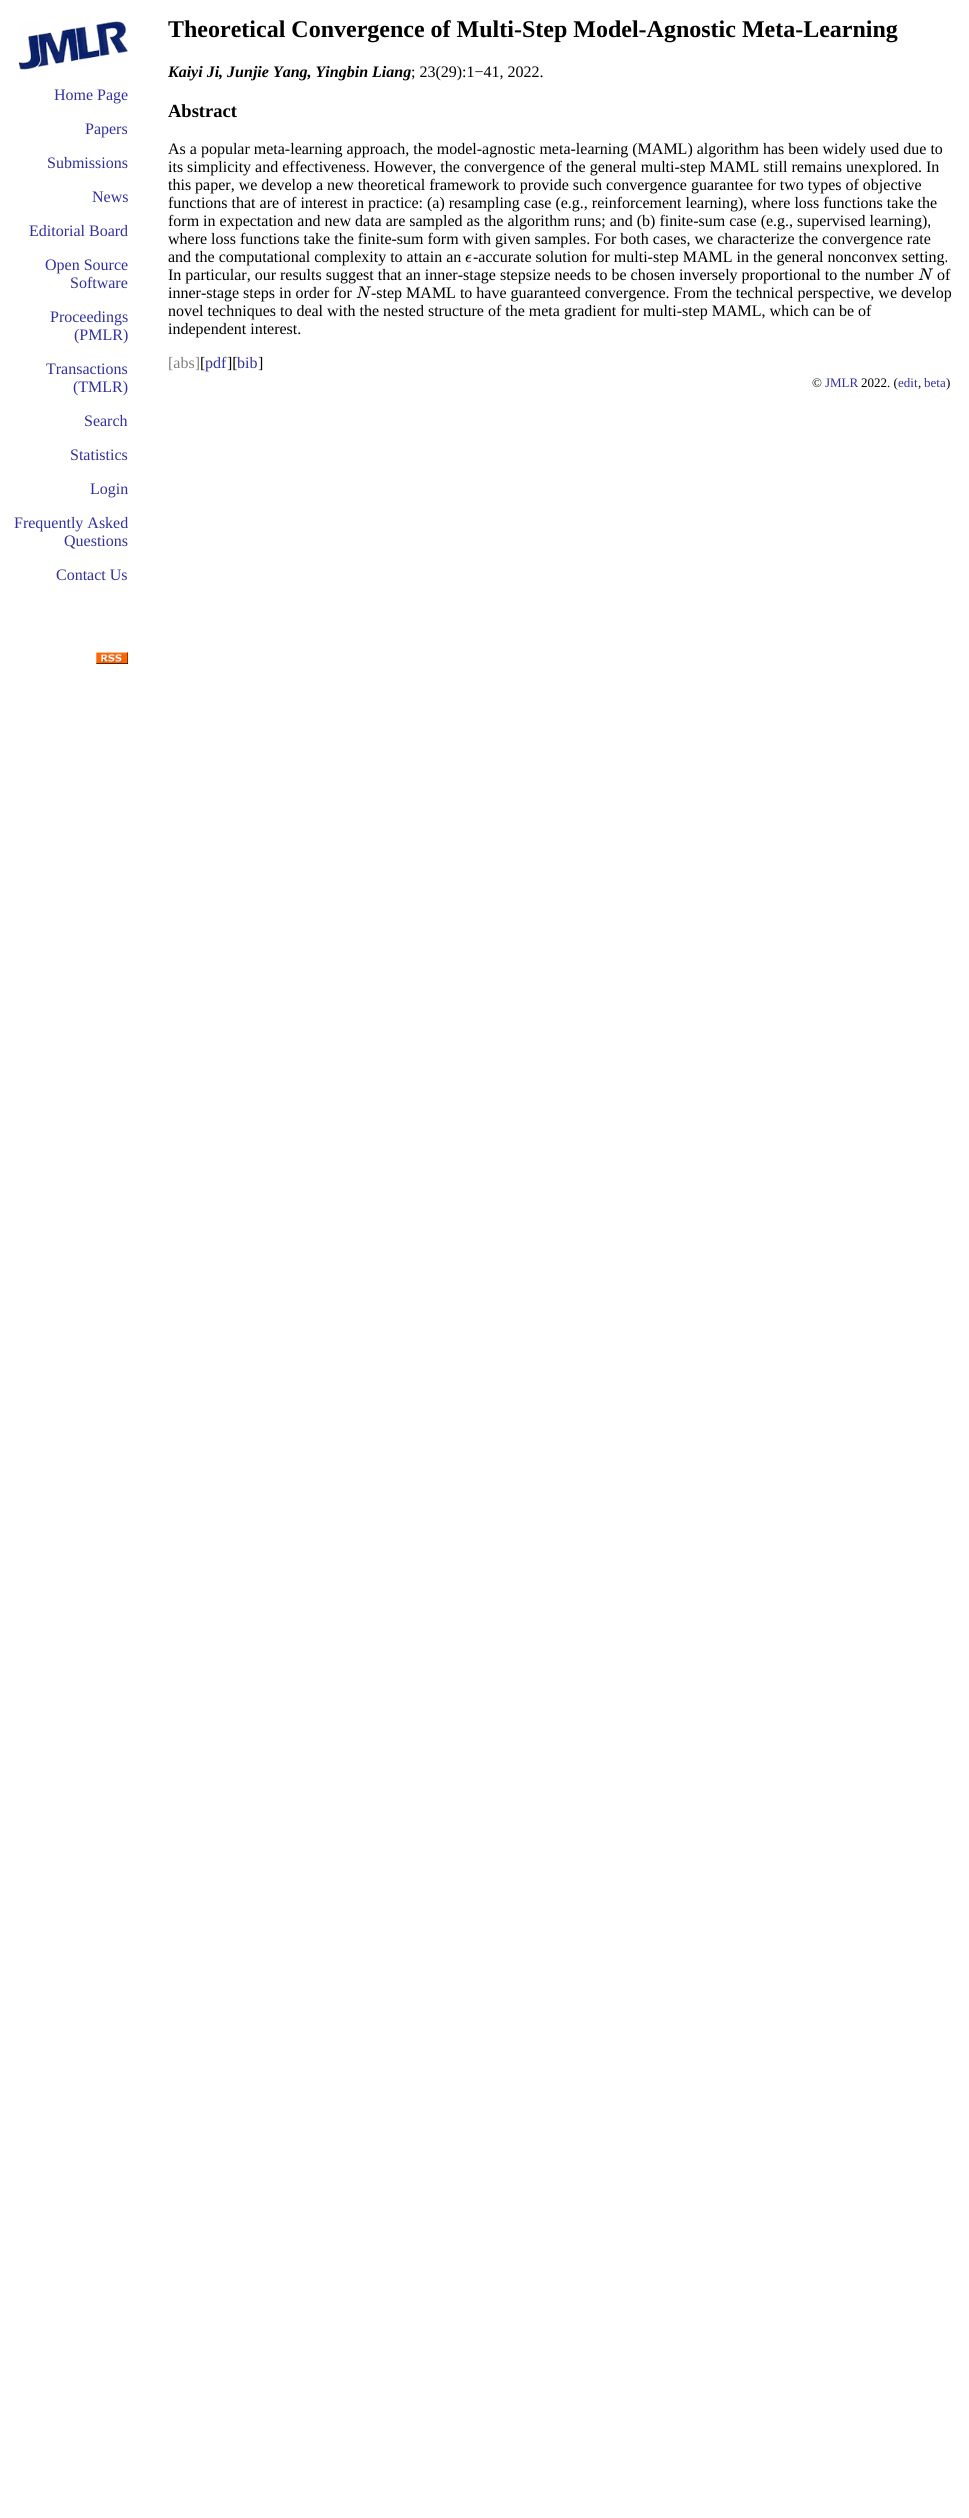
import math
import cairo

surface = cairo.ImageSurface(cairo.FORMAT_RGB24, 969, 2518)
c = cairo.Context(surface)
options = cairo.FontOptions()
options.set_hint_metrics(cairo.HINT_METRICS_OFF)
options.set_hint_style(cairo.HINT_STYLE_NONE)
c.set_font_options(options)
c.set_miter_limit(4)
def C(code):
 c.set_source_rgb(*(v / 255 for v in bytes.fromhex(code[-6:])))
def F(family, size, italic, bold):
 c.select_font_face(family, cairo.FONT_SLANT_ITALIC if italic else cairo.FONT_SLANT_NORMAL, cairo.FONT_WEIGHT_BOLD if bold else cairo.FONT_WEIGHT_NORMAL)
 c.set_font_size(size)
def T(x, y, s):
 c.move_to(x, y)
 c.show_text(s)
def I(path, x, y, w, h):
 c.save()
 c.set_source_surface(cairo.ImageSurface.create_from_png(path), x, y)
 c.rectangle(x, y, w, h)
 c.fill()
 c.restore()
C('ffffff')
c.paint()
I('1.png',18,21,110,49)
F('Liberation Serif',16,0,0)
C('3030a0')
T(54,100,'Home Page')
T(85,134,'Papers')
T(47,168,'Submissions')
T(92,202,'News')
T(29,236,'Editorial Board')
T(45,270,'Open Source')
T(70,288,'Software')
T(50,322,'Proceedings')
T(74,340,'(PMLR)')
T(46,374,'Transactions')
T(73,392,'(TMLR)')
T(84,426,'Search')
T(70,460,'Statistics')
T(90,494,'Login')
T(14,528,'Frequently Asked')
T(64,546,'Questions')
T(56,580,'Contact Us')
I('2.png',96,652,32,12)
F('Liberation Serif',24,0,1)
C('000000')
T(168,37,'Theoretical Convergence of Multi-Step Model-Agnostic Meta-Learning')
F('Liberation Serif',16,1,1)
T(168,77,'Kaiyi Ji, Junjie Yang, Yingbin Liang')
F('Liberation Serif',16,0,0)
T(411,77,'; 23(29):1−41, 2022.')
F('Liberation Serif',18.5,0,1)
T(168,117,'Abstract')
F('Liberation Serif',16,0,0)
T(168,154,'As a popular meta-learning approach, the model-agnostic meta-learning (MAML) algorithm has been widely used due to')
T(168,172,'its simplicity and effectiveness. However, the convergence of the general multi-step MAML still remains unexplored. In')
T(168,190,'this paper, we develop a new theoretical framework to provide such convergence guarantee for two types of objective')
T(168,208,'functions that are of interest in practice: (a) resampling case (e.g., reinforcement learning), where loss functions take the')
T(168,226,'form in expectation and new data are sampled as the algorithm runs; and (b) finite-sum case (e.g., supervised learning),')
T(168,244,'where loss functions take the finite-sum form with given samples. For both cases, we characterize the convergence rate')
T(168,262,'and the computational complexity to attain an')
F('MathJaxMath',17,1,0)
T(465,262,'ϵ')
F('Liberation Serif',16,0,0)
T(473,262,'-accurate solution for multi-step MAML in the general nonconvex setting.')
T(168,280,'In particular, our results suggest that an inner-stage stepsize needs to be chosen inversely proportional to the number')
F('MathJaxMath',17,1,0)
T(918,280,'N')
F('Liberation Serif',16,0,0)
T(937,280,'of')
T(168,298,'inner-stage steps in order for')
F('MathJaxMath',17,1,0)
T(356,298,'N')
F('Liberation Serif',16,0,0)
T(371,298,'-step MAML to have guaranteed convergence. From the technical perspective, we develop')
T(168,316,'novel techniques to deal with the nested structure of the meta gradient for multi-step MAML, which can be of')
T(168,334,'independent interest.')
C('808080')
T(168,368,'[abs]')
C('000000')
T(200,368,'[')
C('3030a0')
T(205,368,'pdf')
C('000000')
T(227,368,'][')
C('3030a0')
T(237,368,'bib')
C('000000')
T(258,368,']')
F('Liberation Serif',13,0,0)
T(812,387,'©')
C('3030a0')
T(825,387,'JMLR')
C('000000')
T(861,387,'2022. (')
C('3030a0')
T(898,387,'edit')
C('000000')
T(918,387,',')
C('3030a0')
T(924,387,'beta')
C('000000')
T(946,387,')')
surface.write_to_png('o.png')
